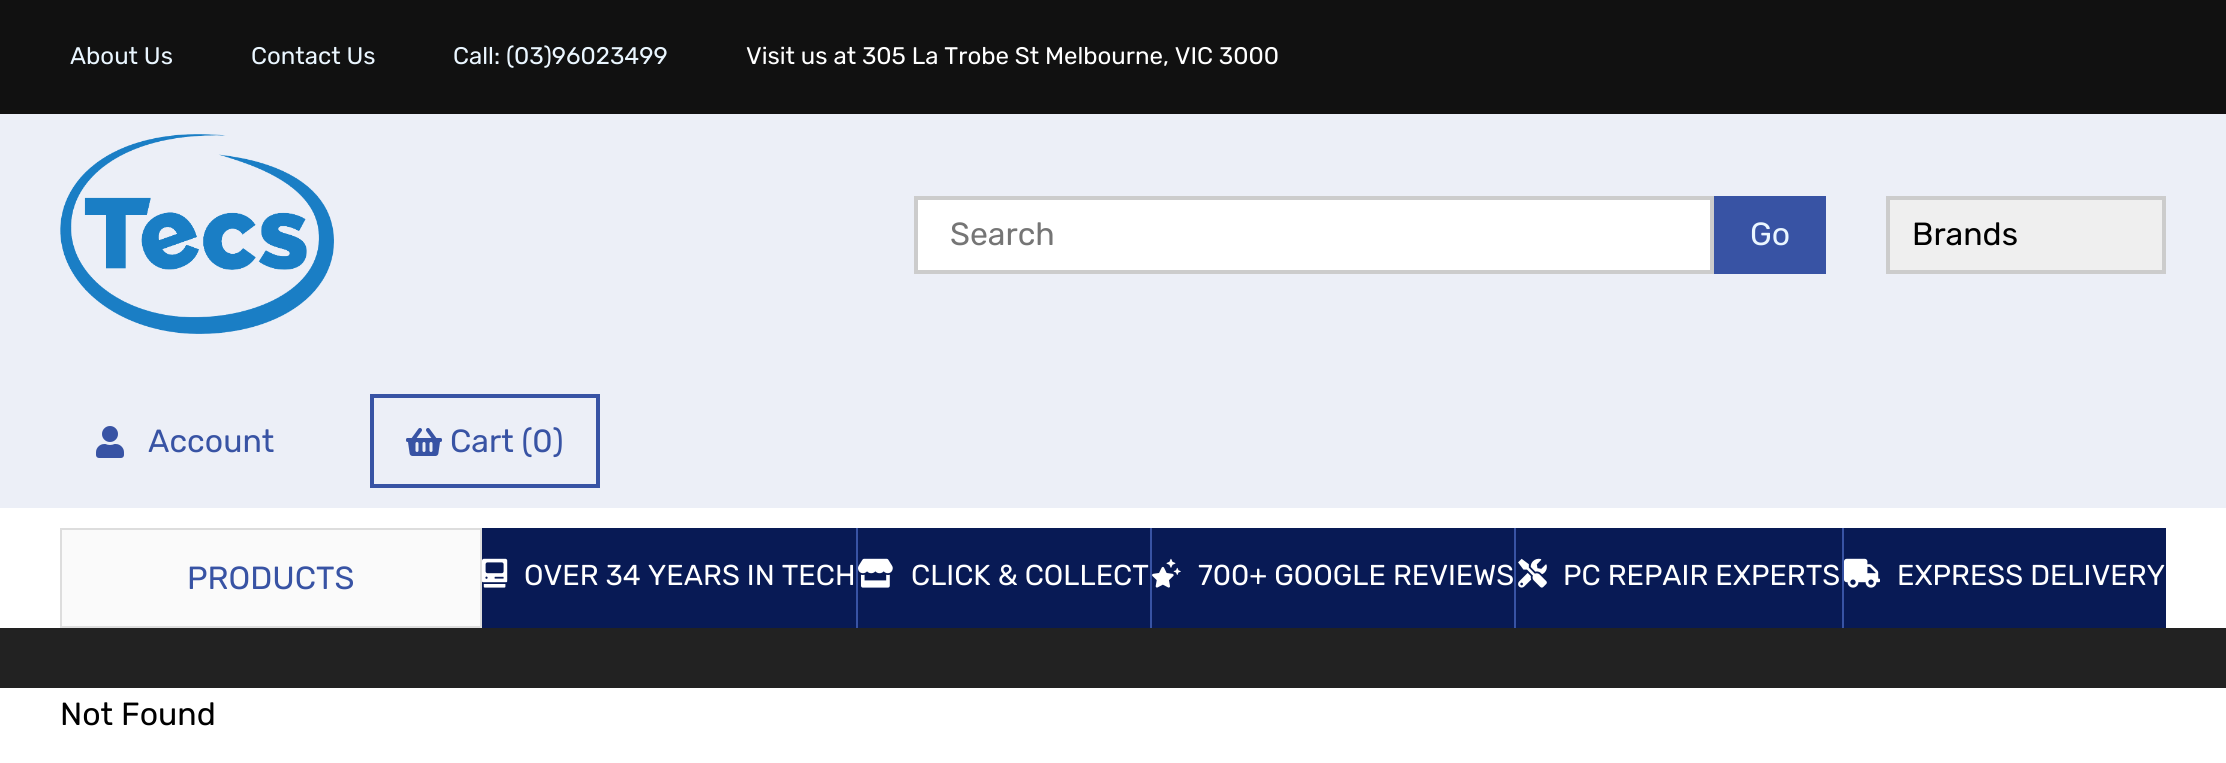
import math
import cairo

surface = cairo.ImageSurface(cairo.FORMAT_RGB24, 2226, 763)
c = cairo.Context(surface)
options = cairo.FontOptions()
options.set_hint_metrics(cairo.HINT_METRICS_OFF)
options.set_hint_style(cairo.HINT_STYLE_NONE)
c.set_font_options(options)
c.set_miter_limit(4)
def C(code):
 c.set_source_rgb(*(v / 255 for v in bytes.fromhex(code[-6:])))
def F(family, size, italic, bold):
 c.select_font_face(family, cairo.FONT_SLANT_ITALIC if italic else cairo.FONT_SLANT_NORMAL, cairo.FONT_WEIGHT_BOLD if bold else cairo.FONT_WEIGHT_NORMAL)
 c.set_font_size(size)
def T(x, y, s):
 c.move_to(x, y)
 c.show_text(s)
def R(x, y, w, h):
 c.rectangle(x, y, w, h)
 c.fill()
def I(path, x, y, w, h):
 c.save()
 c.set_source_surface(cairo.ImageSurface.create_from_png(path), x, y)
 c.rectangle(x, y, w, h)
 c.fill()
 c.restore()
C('222222')
c.paint()
C('eceff7')
R(0,114,2226,394)
C('111111')
R(0,0,2226,114)
F('Rubik',24,0,0)
C('eaf6ff')
T(70,64,'About Us')
T(251,64,'Contact Us')
T(453,64,'Call: (03)96023499')
C('ffffff')
T(746,64,'Visit us at 305 La Trobe St Melbourne, VIC 3000')
I('1.png',60,134,274,200)
c.rectangle(916,198,796,74)
c.fill_preserve()
C('cccccc')
c.set_line_width(4)
c.stroke()
F('Rubik',32,0,0)
C('757575')
T(950,245,'Search')
C('3853a4')
R(1714,196,112,78)
C('eaf6ff')
T(1750,245,'Go')
C('efefef')
c.rectangle(1888,198,276,74)
c.fill_preserve()
C('cccccc')
c.stroke()
C('000000')
T(1912,245,'Brands')
I('2.png',96,426,28,32)
C('3853a4')
T(148,452,'Account')
c.rectangle(372,396,226,90)
c.stroke()
I('3.png',406,428,36,28)
T(450,452,'Cart (0)')
C('ffffff')
R(0,508,2226,120)
C('081a55')
R(482,528,1684,100)
C('fafafa')
c.rectangle(61,529,420,98)
c.fill_preserve()
C('dddddd')
c.set_line_width(2)
c.stroke()
C('3853a4')
T(187,589,'PRODUCTS')
I('4.png',482,558,26,30)
F('Rubik',28.75,0,0)
C('ffffff')
T(524,585,'OVER 34 YEARS IN TECH')
C('3853a4')
R(856,528,2,100)
I('5.png',858,558,35,30)
C('ffffff')
T(911,585,'CLICK & COLLECT')
C('3853a4')
R(1150,528,2,100)
I('6.png',1152,558,29,30)
C('ffffff')
T(1198,585,'700+ GOOGLE REVIEWS')
C('3853a4')
R(1514,528,2,100)
I('7.png',1518,558,29,30)
C('ffffff')
T(1563,585,'PC REPAIR EXPERTS')
C('3853a4')
R(1842,528,2,100)
I('8.png',1844,558,36,30)
C('ffffff')
T(1897,585,'EXPRESS DELIVERY')
R(0,688,2226,75)
F('Rubik',32,0,0)
C('000000')
T(60,725,'Not Found')
surface.write_to_png('o.png')
